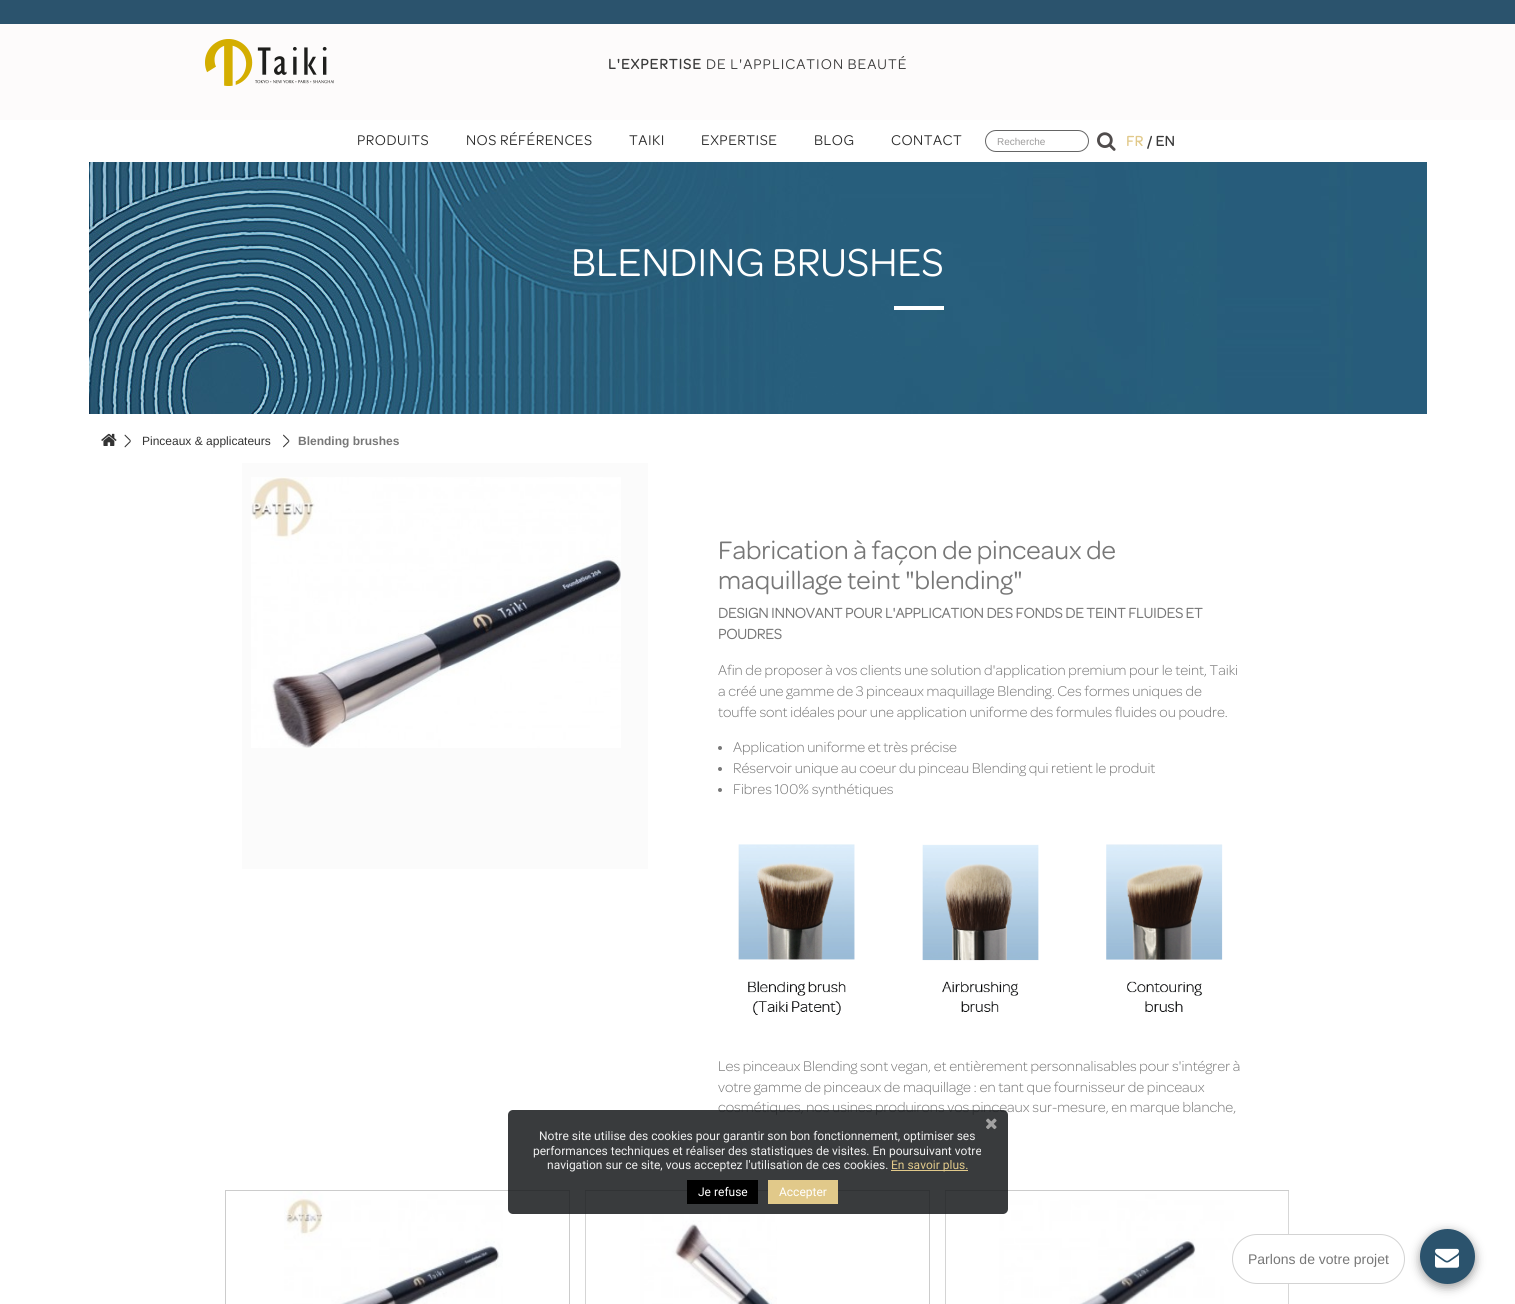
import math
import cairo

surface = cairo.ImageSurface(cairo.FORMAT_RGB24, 1515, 1304)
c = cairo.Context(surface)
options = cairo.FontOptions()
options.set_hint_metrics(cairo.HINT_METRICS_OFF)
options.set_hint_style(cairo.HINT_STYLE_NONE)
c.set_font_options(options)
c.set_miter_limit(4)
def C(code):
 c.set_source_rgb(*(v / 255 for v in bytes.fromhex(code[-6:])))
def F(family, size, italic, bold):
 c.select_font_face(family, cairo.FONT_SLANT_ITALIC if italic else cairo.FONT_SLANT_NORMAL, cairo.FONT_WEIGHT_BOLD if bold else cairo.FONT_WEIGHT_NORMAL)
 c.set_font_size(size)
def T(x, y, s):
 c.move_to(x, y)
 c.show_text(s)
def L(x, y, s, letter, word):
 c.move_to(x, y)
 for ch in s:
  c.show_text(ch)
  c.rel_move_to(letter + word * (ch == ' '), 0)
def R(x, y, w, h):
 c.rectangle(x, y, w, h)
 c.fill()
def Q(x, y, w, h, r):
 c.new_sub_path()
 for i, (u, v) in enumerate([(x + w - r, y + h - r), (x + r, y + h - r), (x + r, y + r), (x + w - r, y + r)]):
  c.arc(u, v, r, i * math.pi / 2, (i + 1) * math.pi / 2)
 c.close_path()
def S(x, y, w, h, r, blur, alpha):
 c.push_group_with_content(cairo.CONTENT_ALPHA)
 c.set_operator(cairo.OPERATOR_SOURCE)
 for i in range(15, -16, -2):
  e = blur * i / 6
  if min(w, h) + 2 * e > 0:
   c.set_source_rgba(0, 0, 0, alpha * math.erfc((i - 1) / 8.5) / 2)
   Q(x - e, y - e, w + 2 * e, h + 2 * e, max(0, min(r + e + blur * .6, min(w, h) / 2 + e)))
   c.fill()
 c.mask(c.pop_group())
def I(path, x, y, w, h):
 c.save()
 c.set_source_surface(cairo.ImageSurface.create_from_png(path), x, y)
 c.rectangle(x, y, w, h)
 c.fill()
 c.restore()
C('ffffff')
c.paint()
C('fdfbfb')
R(0,24,1515,96)
C('2b536d')
R(0,0,1515,24)
I('1.png',205,39,129,47)
F('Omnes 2',15,0,1)
C('3a3a3a')
L(608,69,'L\'EXPERTISE',1,0)
F('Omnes',15,0,0)
L(706,69,'DE L\'APPLICATION BEAUTÉ',1,0)
C('292929')
L(357,145,'PRODUITS',.5,0)
L(466,145,'NOS RÉFÉRENCES',.5,0)
L(629,145,'TAIKI',.5,0)
L(701,145,'EXPERTISE',.5,0)
L(814,145,'BLOG',.5,0)
L(891,145,'CONTACT',.5,0)
Q(985.5,130.5,103,21,10.5)
C('656565')
c.set_line_width(1)
c.stroke()
F('Liberation Sans',10,0,0)
C('9c9b9b')
T(997,145,'Recherche')
I('2.png',1097,132,19,19)
F('Omnes 2',15,0,1)
C('e1c98a')
L(1126,146,'FR',.5,0)
C('3a3a3a')
L(1147,146,'/ EN',.5,0)
I('3.png',89,162,1338,252)
F('Omnes',41.5,0,0)
C('ffffff')
T(571,276,'BLENDING BRUSHES')
R(894,306,50,4)
I('4.png',101,433,16,13)
C('333333')
c.new_path()
c.move_to(125,434.5)
c.line_to(131,440.5)
c.line_to(130,441)
c.line_to(124.5,435.5)
c.close_path()
c.move_to(130,441)
c.line_to(131,441.5)
c.line_to(125,447.5)
c.line_to(124.5,446.5)
c.close_path()
c.fill()
F('Liberation Sans',12,0,0)
T(142,445,'Pinceaux & applicateurs')
c.new_path()
c.move_to(283.5,434.5)
c.line_to(289.5,440.5)
c.line_to(288.5,441)
c.line_to(283,435.5)
c.close_path()
c.move_to(288.5,441)
c.line_to(289.5,441.5)
c.line_to(283.5,447.5)
c.line_to(283,446.5)
c.close_path()
c.fill()
F('Liberation Sans',12,0,1)
C('777777')
T(298,445,'Blending brushes')
C('fbfbfb')
R(242,463,406,406)
I('5.png',251,477,370,271)
F('Omnes',27,0,0)
C('777777')
T(718,559,'Fabrication à façon de pinceaux de')
T(718,589,'maquillage teint "blending"')
F('Omnes',15.05,0,1)
T(718,618,'DESIGN INNOVANT POUR L\'APPLICATION DES FONDS DE TEINT FLUIDES ET')
T(718,639,'POUDRES')
F('Omnes Light',15.05,0,0)
T(718,675,'Afin de proposer à vos clients une solution d\'application premium pour le teint, Taiki')
T(718,696,'a créé une gamme de 3 pinceaux maquillage Blending. Ces formes uniques de')
T(718,717,'touffe sont idéales pour une application uniforme des formules fluides ou poudre.')
c.new_path()
c.arc(720,748,2,0,2 * math.pi)
c.fill()
T(733,752,'Application uniforme et très précise')
c.new_path()
c.arc(720,769,2,0,2 * math.pi)
c.fill()
T(733,773,'Réservoir unique au coeur du pinceau Blending qui retient le produit')
c.new_path()
c.arc(720,790,2,0,2 * math.pi)
c.fill()
T(733,794,'Fibres 100% synthétiques')
I('6.png',738,844,485,171)
T(718,1071,'Les pinceaux Blending sont vegan, et entièrement personnalisables pour s\'intégrer à')
T(718,1092,'votre gamme de pinceaux de maquillage : en tant que fournisseur de pinceaux')
T(718,1112,'cosmétiques, nos usines produirons vos pinceaux sur-mesure, en marque blanche,')
c.rectangle(225.5,1190.5,344,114)
C('cccccc')
c.stroke()
I('7.png',284,1191,219,113)
c.rectangle(585.5,1190.5,344,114)
c.stroke()
I('8.png',585,1191,192,113)
c.rectangle(945.5,1190.5,343,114)
c.stroke()
I('9.png',945,1191,344,113)
c.set_source_rgba(0.09,0.098,0.11,0.85)
Q(508,1110,500,104,5)
c.fill()
I('10.png',986,1118,11,12)
F('Roboto',12,0,0)
C('efefef')
T(539,1140,'Notre site utilise des cookies pour garantir son bon fonctionnement, optimiser ses')
T(533,1155,'performances techniques et réaliser des statistiques de visites. En poursuivant votre')
T(547,1169,'navigation sur ce site, vous acceptez l\'utilisation de ces cookies.')
C('e1c98a')
R(891,1170,77,1)
T(891,1169,'En savoir plus.')
C('000000')
R(687,1180,71,24)
C('ffffff')
T(698,1196,'Je refuse')
C('e1c98a')
R(768,1180,70,24)
C('ffffff')
T(779,1196,'Accepter')
C('999999')
S(1420,1232,55,55,27.5,5,1)
C('ffffff')
Q(1232.5,1234.5,172,49,24.5)
c.fill_preserve()
C('d3d3d3')
c.stroke()
F('Liberation Sans',14,0,0)
C('777777')
T(1248,1264,'Parlons de votre projet')
C('2b536d')
c.new_path()
c.arc(1447.5,1256.5,27.5,0,2 * math.pi)
c.fill()
I('11.png',1435,1248,24,20)
surface.write_to_png('o.png')
